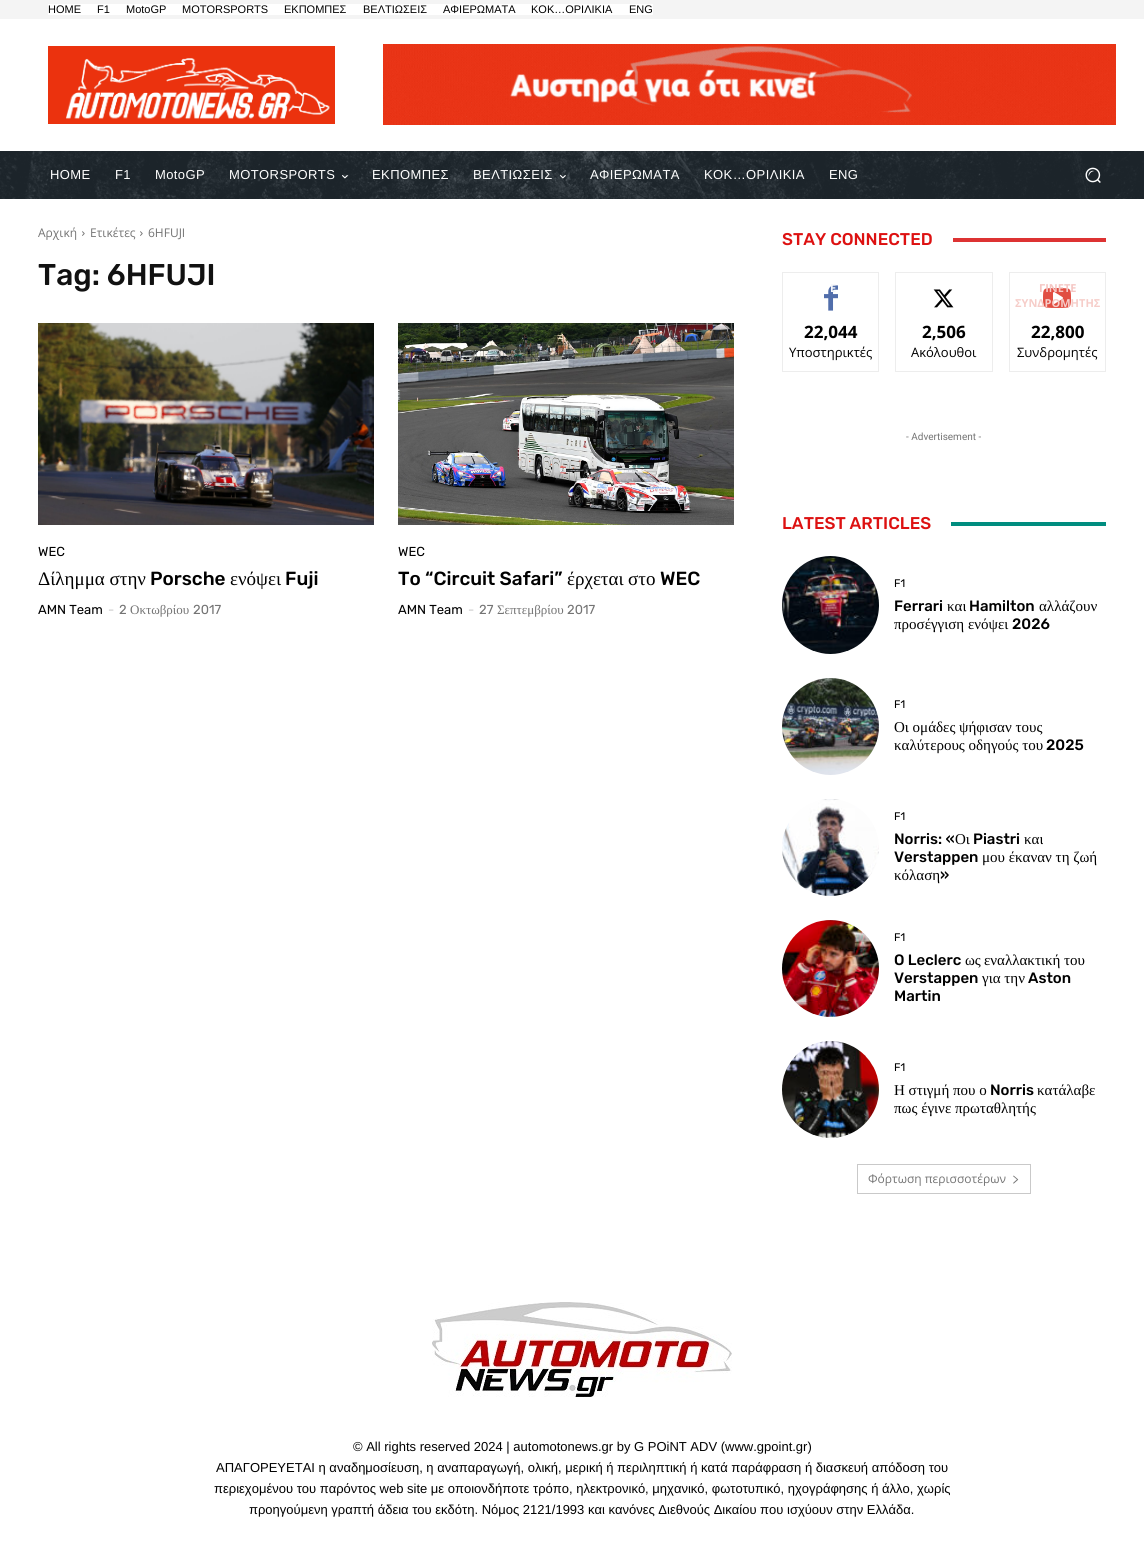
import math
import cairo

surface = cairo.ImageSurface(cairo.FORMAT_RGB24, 1144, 1551)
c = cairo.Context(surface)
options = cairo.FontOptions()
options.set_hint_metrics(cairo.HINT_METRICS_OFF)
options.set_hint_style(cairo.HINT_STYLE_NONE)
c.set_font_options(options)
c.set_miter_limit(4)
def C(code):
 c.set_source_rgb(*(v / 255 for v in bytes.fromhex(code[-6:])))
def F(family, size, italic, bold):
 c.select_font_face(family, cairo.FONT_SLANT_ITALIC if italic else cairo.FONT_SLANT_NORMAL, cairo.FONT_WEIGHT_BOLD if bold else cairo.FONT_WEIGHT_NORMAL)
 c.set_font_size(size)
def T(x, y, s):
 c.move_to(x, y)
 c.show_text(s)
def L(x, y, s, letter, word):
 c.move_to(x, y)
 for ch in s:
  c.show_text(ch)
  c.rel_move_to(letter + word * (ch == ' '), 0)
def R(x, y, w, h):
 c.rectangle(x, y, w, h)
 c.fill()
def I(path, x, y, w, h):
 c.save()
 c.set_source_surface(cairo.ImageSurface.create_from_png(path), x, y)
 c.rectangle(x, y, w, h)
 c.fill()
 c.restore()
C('ffffff')
c.paint()
C('f4f4f4')
R(0,0,1144,19)
C('ffffff')
R(48,4,605,11)
F('Liberation Sans',11,0,0)
C('000000')
T(48,13,'HOME')
T(97,13,'F1')
T(126,13,'MotoGP')
T(182,13,'MOTORSPORTS')
T(284,13,'ΕΚΠΟΜΠΕΣ')
T(363,13,'ΒΕΛΤΙΩΣΕΙΣ')
T(443,13,'ΑΦΙΕΡΩΜΑΤΑ')
T(531,13,'ΚΟΚ…ΟΡΙΛΙΚΙΑ')
T(629,13,'ENG')
I('1.png',48,46,287,78)
I('2.png',383,44,733,81)
C('232d35')
R(0,151,1144,48)
I('3.png',0,151,1144,48)
F('Liberation Sans',13,0,0)
C('ffffff')
L(50,179,'HOME',.4,0)
L(115,179,'F1',.4,0)
L(155,179,'MotoGP',.4,0)
L(229,179,'MOTORSPORTS',.4,0)
I('4.png',342,175,6,4)
L(372,179,'ΕΚΠΟΜΠΕΣ',.4,0)
L(473,179,'ΒΕΛΤΙΩΣΕΙΣ',.4,0)
I('5.png',560,175,6,4)
L(590,179,'ΑΦΙΕΡΩΜΑΤΑ',.4,0)
L(704,179,'ΚΟΚ…ΟΡΙΛΙΚΙΑ',.4,0)
L(829,179,'ENG',.4,0)
I('6.png',1085,167,16,16)
F('Open Sans',12,0,0)
C('747474')
T(38,237,'Αρχική')
I('7.png',82,231,3,5)
T(90,237,'Ετικέτες')
I('7.png',140,231,3,5)
T(148,237,'6HFUJI')
F('Rubik Medium',30,0,0)
C('111111')
T(38,285,'Tag: 6HFUJI')
I('8.png',38,323,336,202)
F('Rubik',13,0,0)
C('000000')
T(38,556,'WEC')
F('Liberation Serif',19,0,0)
T(38,585,'Δίλημμα στην')
F('Rubik Medium',19,0,0)
T(150,585,'Porsche')
F('Liberation Serif',19,0,0)
T(230,585,'ενόψει')
F('Rubik Medium',19,0,0)
T(285,585,'Fuji')
F('Rubik',13,0,0)
T(38,614,'AMN Team')
C('cccccc')
T(108,614,'-')
C('747474')
T(119,614,'2')
F('Liberation Serif',13,0,0)
T(130,614,'Οκτωβρίου')
F('Rubik',13,0,0)
T(193,614,'2017')
I('9.png',398,323,336,202)
C('000000')
T(398,556,'WEC')
F('Rubik Medium',19,0,0)
T(398,585,'To “Circuit Safari”')
F('Liberation Serif',19,0,0)
T(567,585,'έρχεται')
T(628,585,'στο')
F('Rubik Medium',19,0,0)
T(660,585,'WEC')
F('Rubik',13,0,0)
T(398,614,'AMN Team')
C('cccccc')
T(468,614,'-')
C('747474')
T(479,614,'27')
F('Liberation Serif',13,0,0)
T(497,614,'Σεπτεμβρίου')
F('Rubik',13,0,0)
T(567,614,'2017')
F('Rubik Medium',17,0,0)
C('dd1111')
T(782,245,'STAY CONNECTED')
C('dd3333')
R(953,238,153,4)
c.rectangle(782.5,272.5,96,99)
C('ededed')
c.set_line_width(1)
c.stroke()
I('10.png',824,285,14,26)
F('Open Sans',11,0,1)
C('f4f6fa')
T(830,292,'Ε')
F('Open Sans',17,0,1)
C('000000')
T(804,338,'22,044')
F('Open Sans',13,0,0)
T(789,357,'Υποστηρικτές')
c.rectangle(895.5,272.5,97,99)
C('ededed')
c.stroke()
I('11.png',933,289,21,19)
F('Open Sans',17,0,1)
C('000000')
T(922,338,'2,506')
F('Open Sans',13,0,0)
T(911,357,'Ακόλουθοι')
c.rectangle(1009.5,272.5,96,99)
C('ededed')
c.stroke()
I('12.png',1043,288,28,20)
F('Open Sans',11,0,1)
C('f5c6c3')
T(1039,292,'ΓΙΝΕΤΕ')
C('f6cdc9')
T(1015,307,'ΣΥΝΔΡΟΜΗΤΗΣ')
F('Open Sans',17,0,1)
C('000000')
T(1031,338,'22,800')
F('Open Sans',13,0,0)
T(1017,357,'Συνδρομητές')
F('Roboto',10,0,0)
C('747474')
T(906,440,'- Advertisement -')
F('Rubik Medium',17,0,0)
C('dd1111')
T(782,529,'LATEST ARTICLES')
C('008d7f')
R(951,522,155,4)
I('13.png',782,556,97,98)
F('Rubik',11,0,0)
C('000000')
T(894,587,'F1')
F('Rubik Medium',15,0,0)
T(894,611,'Ferrari')
F('Liberation Serif',15,0,0)
T(947,611,'και')
F('Rubik Medium',15,0,0)
T(969,611,'Hamilton')
F('Liberation Serif',15,0,0)
T(1039,611,'αλλάζουν')
T(894,629,'προσέγγιση ενόψει')
F('Rubik Medium',15,0,0)
T(1012,629,'2026')
I('14.png',782,678,97,97)
F('Rubik',11,0,0)
T(894,708,'F1')
F('Liberation Serif',15,0,0)
T(894,732,'Οι ομάδες ψήφισαν τους')
T(894,750,'καλύτερους οδηγούς του')
F('Rubik Medium',15,0,0)
T(1046,750,'2025')
I('15.png',782,799,97,97)
F('Rubik',11,0,0)
T(894,820,'F1')
F('Rubik Medium',15,0,0)
T(894,844,'Norris: «')
F('Liberation Serif',15,0,0)
T(955,844,'Οι')
F('Rubik Medium',15,0,0)
T(973,844,'Piastri')
F('Liberation Serif',15,0,0)
T(1024,844,'και')
F('Rubik Medium',15,0,0)
T(894,862,'Verstappen')
F('Liberation Serif',15,0,0)
T(982,862,'μου έκαναν τη ζωή')
T(894,880,'κόλαση')
F('Rubik Medium',15,0,0)
T(940,880,'»')
I('16.png',782,920,97,97)
F('Rubik',11,0,0)
T(894,941,'F1')
F('Rubik Medium',15,0,0)
T(894,965,'O Leclerc')
F('Liberation Serif',15,0,0)
T(965,965,'ως')
T(984,965,'εναλλακτική')
T(1064,965,'του')
F('Rubik Medium',15,0,0)
T(894,983,'Verstappen')
F('Liberation Serif',15,0,0)
T(982,983,'για την')
F('Rubik Medium',15,0,0)
T(1028,983,'Aston')
T(894,1001,'Martin')
I('17.png',782,1041,97,97)
F('Rubik',11,0,0)
T(894,1071,'F1')
F('Liberation Serif',15,0,0)
T(894,1095,'Η στιγμή που ο')
F('Rubik Medium',15,0,0)
T(990,1095,'Norris')
F('Liberation Serif',15,0,0)
T(1037,1095,'κατάλαβε')
T(894,1113,'πως έγινε πρωταθλητής')
c.rectangle(857.5,1164.5,173,29)
C('c9c9c9')
c.stroke()
F('Open Sans',12,0,0)
C('747474')
T(868,1183,'Φόρτωση περισσοτέρων')
I('18.png',1013,1175,6,9)
I('19.png',432,1302,300,95)
F('Liberation Sans',13,0,0)
C('000000')
T(353,1451,'© All rights reserved 2024 | automotonews.gr by G POiNT ADV (www.gpoint.gr)')
T(216,1472,'ΑΠΑΓΟΡΕΥΕΤΑΙ η αναδημοσίευση, η αναπαραγωγή, ολική, μερική ή περιληπτική ή κατά παράφραση ή διασκευή απόδοση του')
T(214,1493,'περιεχομένου του παρόντος web site με οποιονδήποτε τρόπο, ηλεκτρονικό, μηχανικό, φωτοτυπικό, ηχογράφησης ή άλλο, χωρίς')
T(249,1514,'προηγούμενη γραπτή άδεια του εκδότη. Νόμος 2121/1993 και κανόνες Διεθνούς Δικαίου που ισχύουν στην Ελλάδα.')
surface.write_to_png('o.png')
